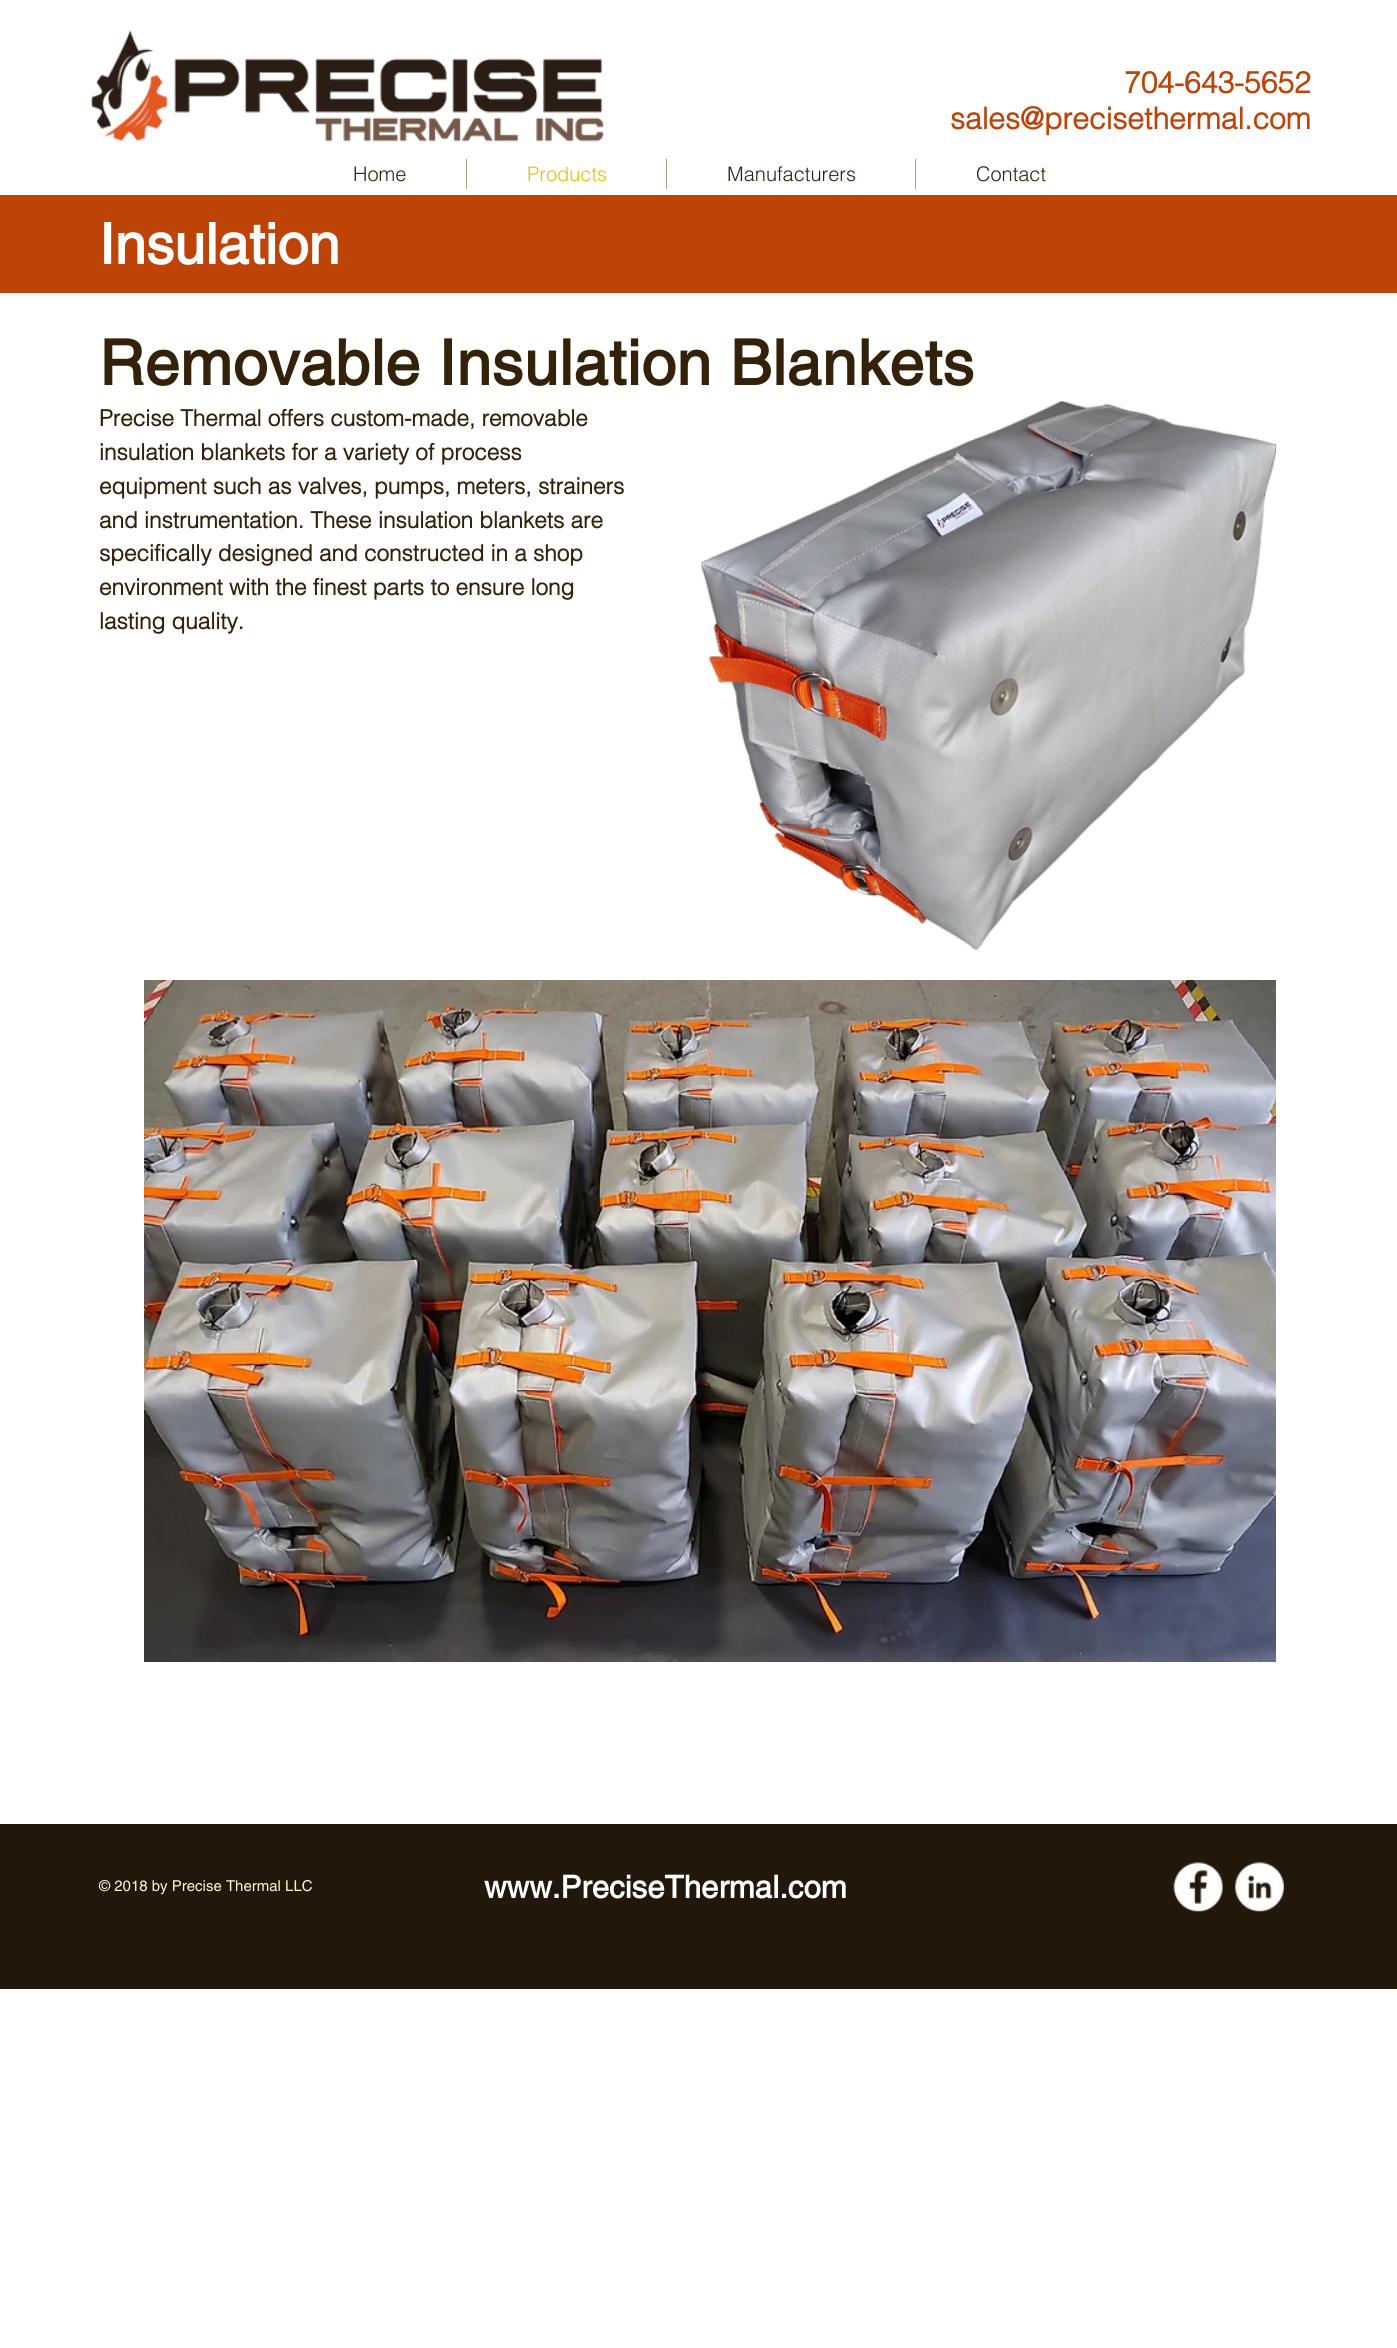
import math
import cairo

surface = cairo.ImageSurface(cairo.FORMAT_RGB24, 1397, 2348)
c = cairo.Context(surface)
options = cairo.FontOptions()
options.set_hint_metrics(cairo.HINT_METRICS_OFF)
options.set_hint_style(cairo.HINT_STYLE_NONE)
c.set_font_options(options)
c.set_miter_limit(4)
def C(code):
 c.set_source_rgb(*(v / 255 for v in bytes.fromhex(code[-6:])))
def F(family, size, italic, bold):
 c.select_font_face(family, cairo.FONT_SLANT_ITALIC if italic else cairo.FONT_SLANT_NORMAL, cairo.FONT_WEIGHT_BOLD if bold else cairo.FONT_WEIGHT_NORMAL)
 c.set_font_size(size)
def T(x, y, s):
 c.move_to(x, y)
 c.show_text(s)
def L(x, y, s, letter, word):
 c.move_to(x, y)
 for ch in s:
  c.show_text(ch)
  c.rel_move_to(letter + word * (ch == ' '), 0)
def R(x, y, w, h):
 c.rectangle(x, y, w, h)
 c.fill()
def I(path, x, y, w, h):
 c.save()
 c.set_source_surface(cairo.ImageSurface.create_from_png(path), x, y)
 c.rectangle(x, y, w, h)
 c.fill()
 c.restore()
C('ffffff')
c.paint()
I('1.png',91,30,513,112)
F('helvetica',30,0,1)
C('bd4306')
T(1124,93,'704-643-5652')
T(950,129,'sales@precisethermal.com')
F('helvetica Light',20,0,0)
C('342109')
T(353,181,'Home')
C('b39e82')
R(466,159,1,30)
C('eabd07')
T(527,181,'Products')
C('b39e82')
R(666,159,1,30)
C('342109')
T(727,181,'Manufacturers')
C('b39e82')
R(915,159,1,30)
C('342109')
T(976,181,'Contact')
C('bd4306')
R(0,195,1397,98)
F('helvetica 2',56.25,0,1)
C('ffffff')
T(99,264,'Insulation')
F('helvetica 2',62.5,0,1)
C('342109')
L(99,385,'Removable Insulation Blankets',.6,0)
F('helvetica',22.5,0,1)
T(99,426,'Precise Thermal offers custom-made, removable')
T(99,460,'insulation blankets for a variety of process')
T(99,494,'equipment such as valves, pumps, meters, strainers')
T(99,528,'and instrumentation. These insulation blankets are')
T(99,561,'specifically designed and constructed in a shop')
T(99,595,'environment with the finest parts to ensure long')
T(99,629,'lasting quality.')
I('2.png',701,401,576,549)
I('3.png',144,980,1132,683)
C('21170b')
R(0,1824,1397,165)
F('helvetica',15,0,0)
C('fff4ca')
T(99,1891,'© 2018 by Precise Thermal LLC')
F('helvetica 2',31.25,0,1)
C('ffffff')
T(484,1898,'www.PreciseThermal.com')
I('4.png',1173,1862,50,50)
I('5.png',1235,1862,49,50)
surface.write_to_png('o.png')
